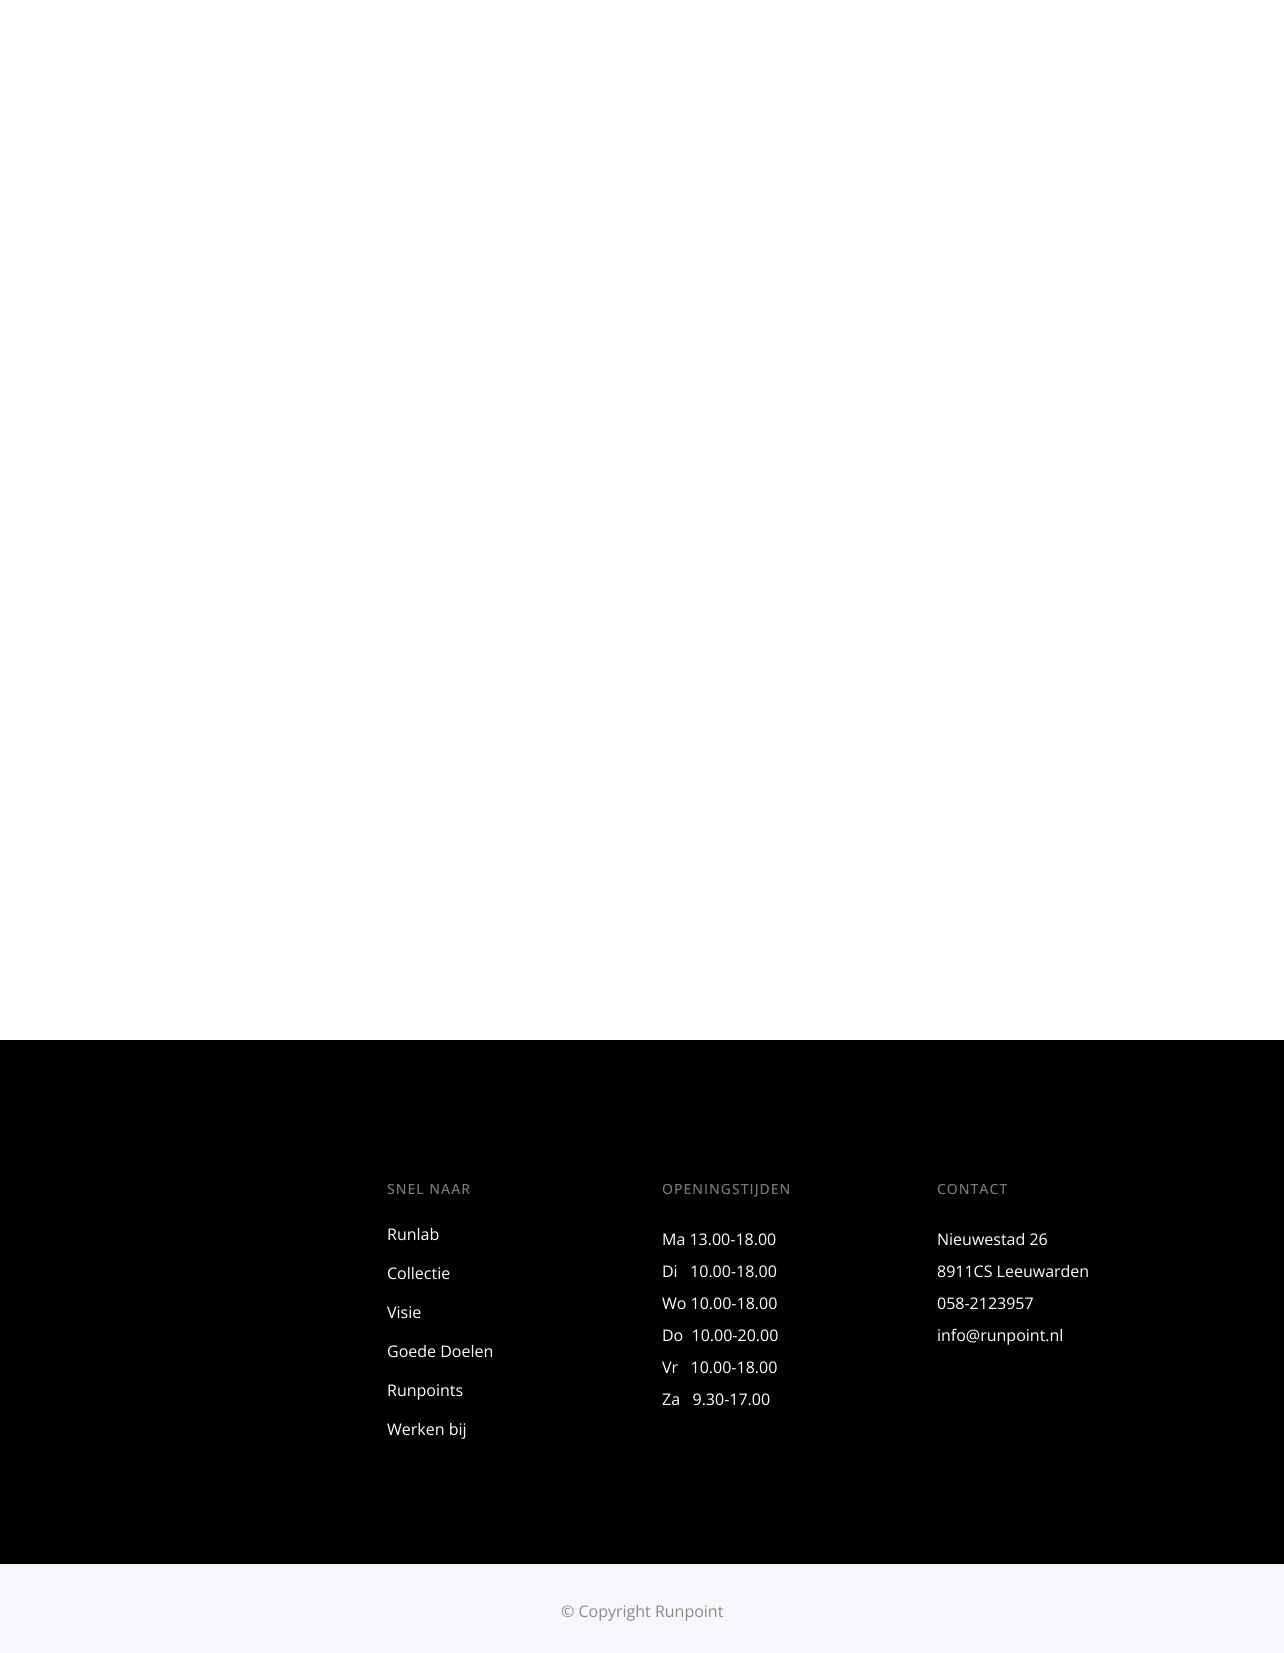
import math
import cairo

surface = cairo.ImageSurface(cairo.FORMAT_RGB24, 1284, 1653)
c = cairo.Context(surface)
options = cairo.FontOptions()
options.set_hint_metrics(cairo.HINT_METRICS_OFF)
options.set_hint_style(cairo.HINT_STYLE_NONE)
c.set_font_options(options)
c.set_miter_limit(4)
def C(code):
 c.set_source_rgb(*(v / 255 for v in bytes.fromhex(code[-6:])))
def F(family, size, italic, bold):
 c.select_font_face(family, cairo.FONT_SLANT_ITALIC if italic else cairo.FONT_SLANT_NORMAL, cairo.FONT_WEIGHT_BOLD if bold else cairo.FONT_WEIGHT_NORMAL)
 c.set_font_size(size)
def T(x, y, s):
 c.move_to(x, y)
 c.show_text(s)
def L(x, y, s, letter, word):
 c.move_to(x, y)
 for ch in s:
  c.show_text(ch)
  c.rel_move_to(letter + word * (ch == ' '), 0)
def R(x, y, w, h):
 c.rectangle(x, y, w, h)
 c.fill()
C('ffffff')
c.paint()
C('000000')
R(0,1040,1284,524)
F('Open Sans Medium',14,0,0)
C('7a7a7a')
L(387,1194,'SNEL NAAR',1,0)
F('Open Sans',16,0,0)
C('ffffff')
T(387,1240,'Runlab')
T(387,1279,'Collectie')
T(387,1318,'Visie')
T(387,1357,'Goede Doelen')
T(387,1396,'Runpoints')
T(387,1435,'Werken bij')
F('Open Sans Medium',14,0,0)
C('7a7a7a')
L(662,1194,'OPENINGSTIJDEN',1,0)
F('Open Sans',16,0,0)
C('ffffff')
T(662,1245,'Ma 13.00-18.00')
T(662,1277,'Di   10.00-18.00')
T(662,1309,'Wo 10.00-18.00')
T(662,1341,'Do  10.00-20.00')
T(662,1373,'Vr   10.00-18.00')
T(662,1405,'Za   9.30-17.00')
F('Open Sans Medium',14,0,0)
C('7a7a7a')
L(937,1194,'CONTACT',1,0)
F('Open Sans',16,0,0)
C('ffffff')
T(937,1245,'Nieuwestad 26')
T(937,1277,'8911CS Leeuwarden')
T(937,1309,'058-2123957')
T(937,1341,'info@runpoint.nl')
C('f5f7fa')
R(0,1564,1284,89)
C('8b8b8b')
T(561,1617,'© Copyright Runpoint')
surface.write_to_png('o.png')
